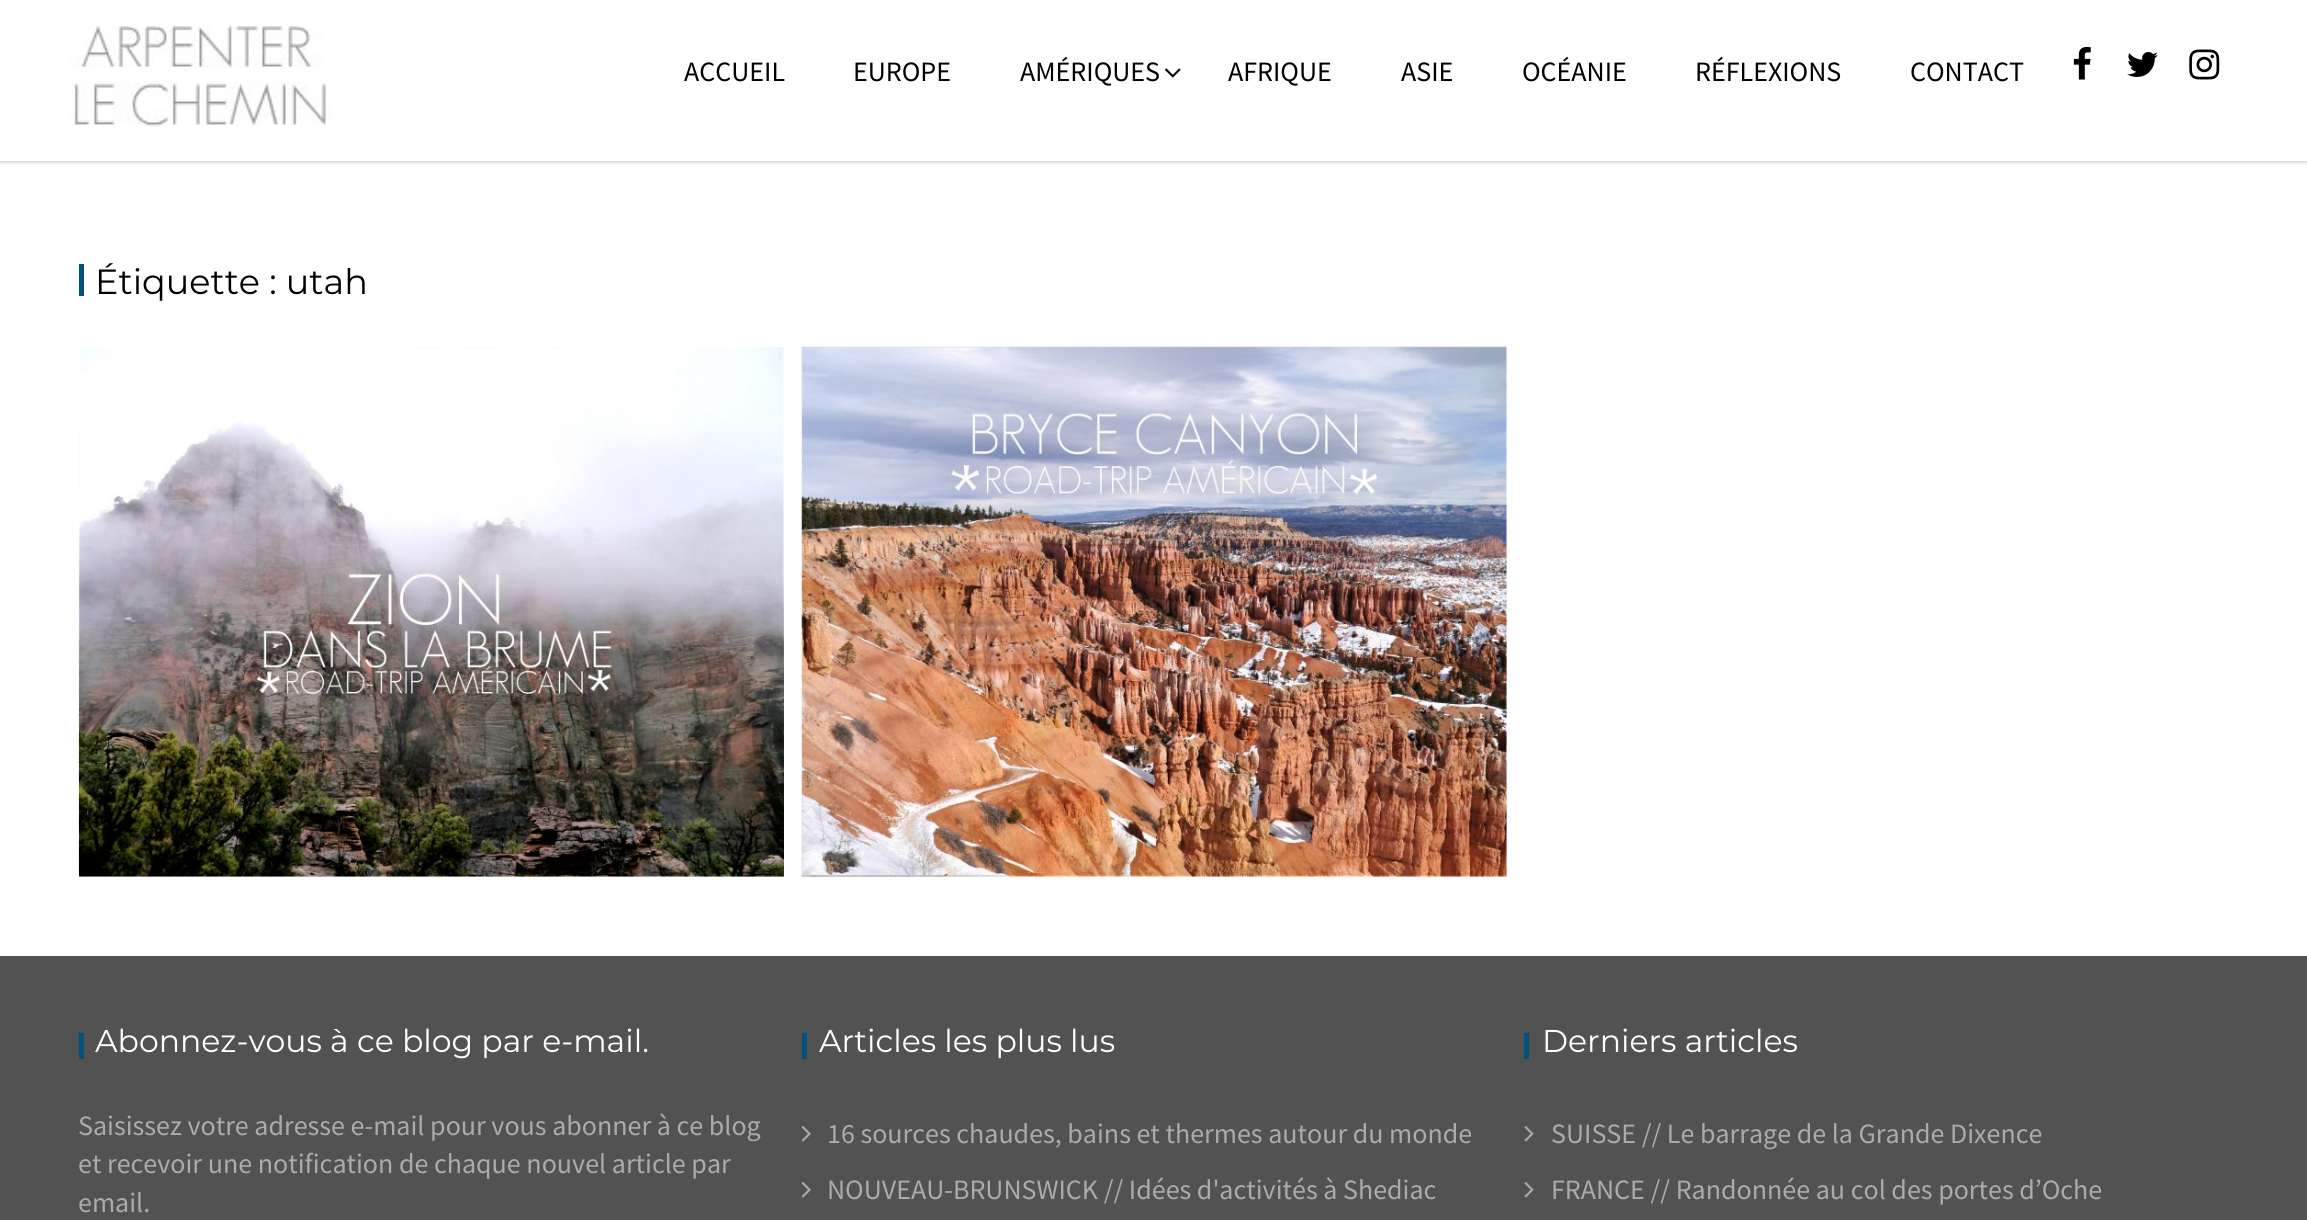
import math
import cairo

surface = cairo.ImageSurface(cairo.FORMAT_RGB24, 2307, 1220)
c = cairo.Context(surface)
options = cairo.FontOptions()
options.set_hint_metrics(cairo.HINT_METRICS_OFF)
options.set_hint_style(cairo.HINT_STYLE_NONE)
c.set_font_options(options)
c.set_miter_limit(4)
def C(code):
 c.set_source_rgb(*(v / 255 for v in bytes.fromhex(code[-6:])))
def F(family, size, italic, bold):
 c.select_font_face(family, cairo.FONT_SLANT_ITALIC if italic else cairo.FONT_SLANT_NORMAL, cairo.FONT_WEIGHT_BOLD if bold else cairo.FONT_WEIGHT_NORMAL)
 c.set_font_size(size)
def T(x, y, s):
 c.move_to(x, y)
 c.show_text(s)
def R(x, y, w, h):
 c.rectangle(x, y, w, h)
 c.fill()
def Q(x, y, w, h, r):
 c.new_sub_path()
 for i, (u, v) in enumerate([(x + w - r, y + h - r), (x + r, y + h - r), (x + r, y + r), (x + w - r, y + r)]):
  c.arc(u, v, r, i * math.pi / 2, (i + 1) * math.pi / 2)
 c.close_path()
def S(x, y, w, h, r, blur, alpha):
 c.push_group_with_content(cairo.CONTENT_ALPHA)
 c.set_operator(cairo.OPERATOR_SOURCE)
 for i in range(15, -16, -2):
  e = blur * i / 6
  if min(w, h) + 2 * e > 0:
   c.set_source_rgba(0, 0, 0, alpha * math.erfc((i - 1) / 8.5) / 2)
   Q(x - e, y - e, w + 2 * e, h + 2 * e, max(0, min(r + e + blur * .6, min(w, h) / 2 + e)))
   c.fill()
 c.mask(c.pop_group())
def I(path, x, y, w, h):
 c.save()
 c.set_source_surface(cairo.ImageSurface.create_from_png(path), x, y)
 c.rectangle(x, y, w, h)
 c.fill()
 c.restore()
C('ffffff')
c.paint()
c.save()
c.rectangle(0,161,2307,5)
c.clip()
C('aaaaaa')
S(0,0,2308,161,0,2.5,1)
c.restore()
I('1.png',70,26,262,101)
F('Source Sans Pro',28,0,0)
C('000000')
T(684,81,'ACCUEIL')
T(853,81,'EUROPE')
T(1020,81,'AMÉRIQUES')
I('2.png',1165,68,16,10)
T(1228,81,'AFRIQUE')
T(1401,81,'ASIE')
T(1522,81,'OCÉANIE')
T(1695,81,'RÉFLEXIONS')
T(1910,81,'CONTACT')
I('3.png',2073,47,18,33)
I('4.png',2127,52,31,25)
I('5.png',2189,49,31,31)
C('00537c')
R(79,264,5,32)
F('Montserrat',35,0,0)
C('000000')
T(95,294,'Étiquette : utah')
I('6.png',78,347,706,530)
I('7.png',801,346,706,531)
C('525252')
R(0,956,2307,264)
C('00537c')
R(79,1033,5,26)
F('Montserrat',31.5,0,0)
C('ffffff')
T(95,1052,'Abonnez-vous à ce blog par e-mail.')
F('Source Sans Pro',28,0,0)
C('ababab')
T(78,1135,'Saisissez votre adresse e-mail pour vous abonner à ce blog')
T(78,1173,'et recevoir une notification de chaque nouvel article par')
T(78,1212,'email.')
C('00537c')
R(802,1033,5,26)
F('Montserrat',31.5,0,0)
C('ffffff')
T(819,1052,'Articles les plus lus')
I('8.png',801,1126,10,16)
F('Source Sans Pro',28,0,0)
C('ababab')
T(827,1143,'16 sources chaudes, bains et thermes autour du monde')
I('8.png',801,1182,10,16)
T(827,1199,'NOUVEAU-BRUNSWICK // Idées d\'activités à Shediac')
C('00537c')
R(1524,1033,5,26)
F('Montserrat',31.5,0,0)
C('ffffff')
T(1542,1052,'Derniers articles')
I('9.png',1524,1126,10,16)
F('Source Sans Pro',28,0,0)
C('ababab')
T(1551,1143,'SUISSE // Le barrage de la Grande Dixence')
I('9.png',1524,1182,10,16)
T(1551,1199,'FRANCE // Randonnée au col des portes d’Oche')
surface.write_to_png('o.png')
